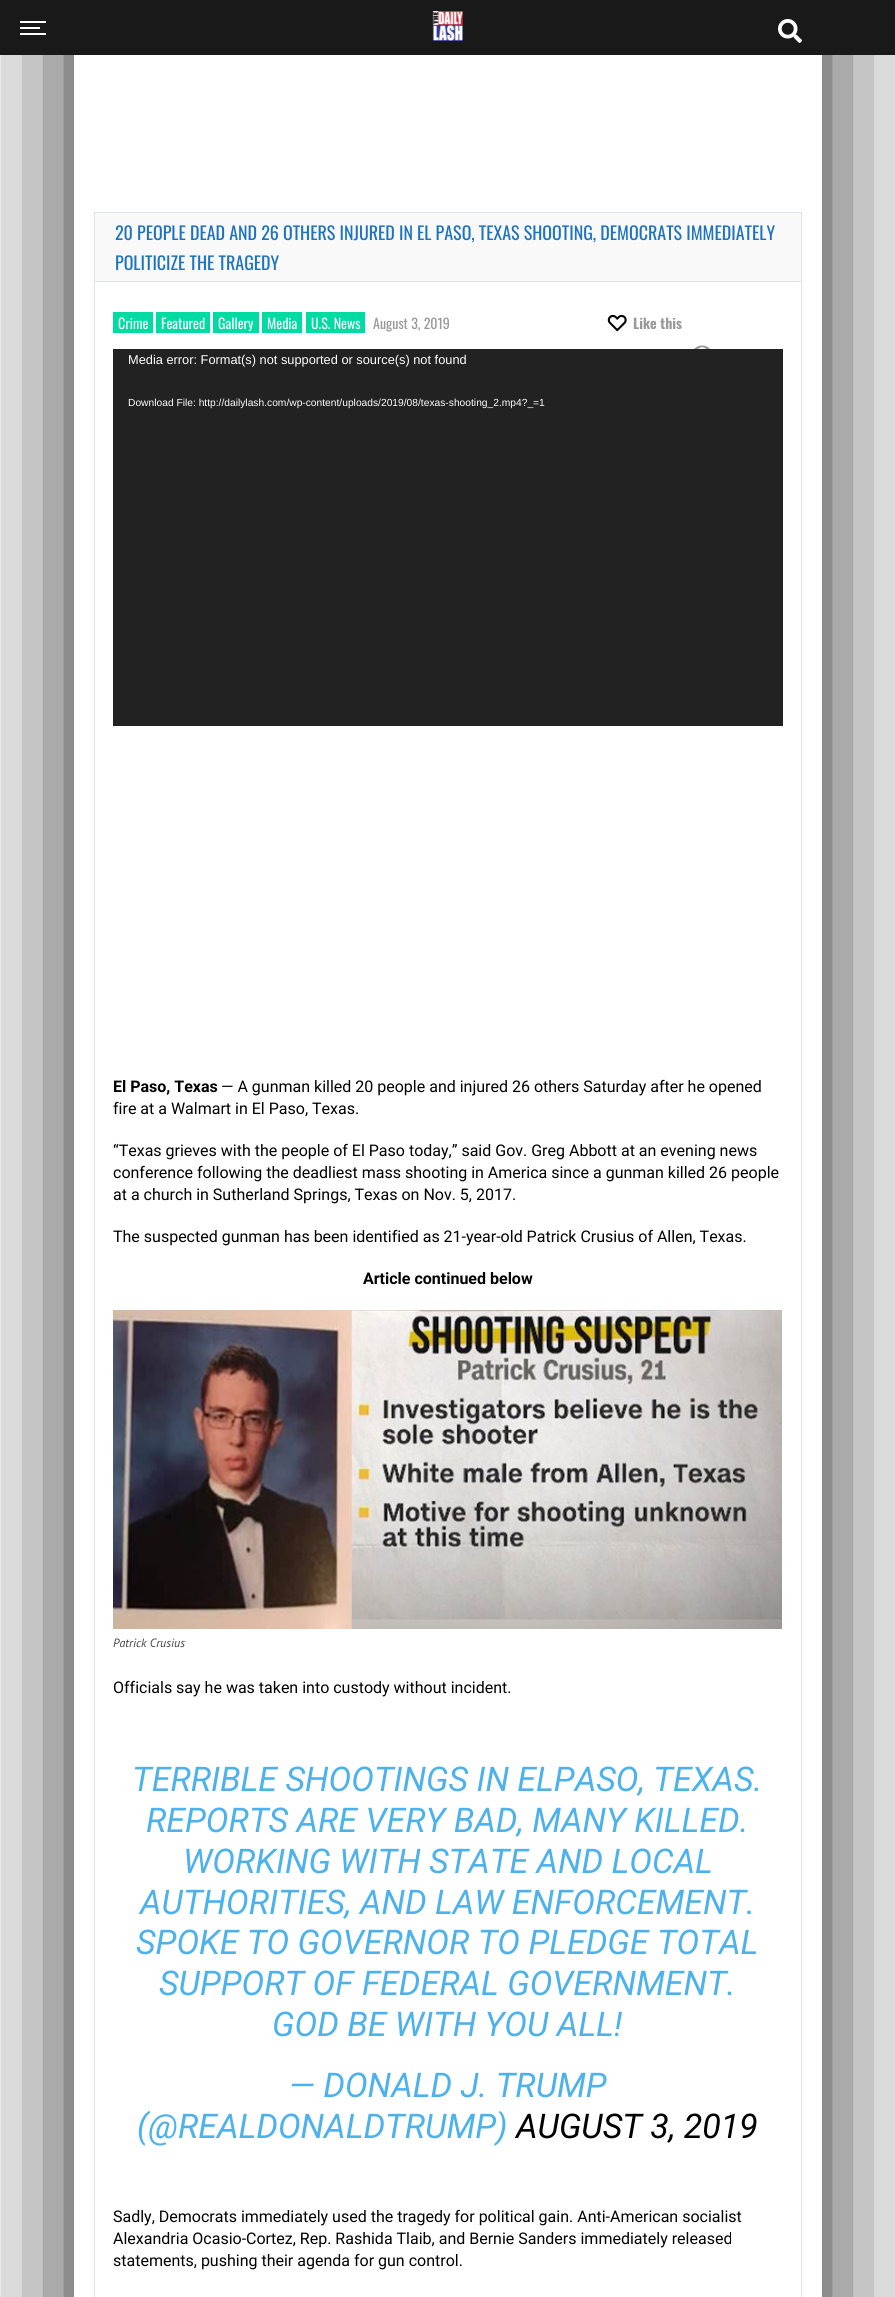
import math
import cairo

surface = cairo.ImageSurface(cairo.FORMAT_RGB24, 895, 2297)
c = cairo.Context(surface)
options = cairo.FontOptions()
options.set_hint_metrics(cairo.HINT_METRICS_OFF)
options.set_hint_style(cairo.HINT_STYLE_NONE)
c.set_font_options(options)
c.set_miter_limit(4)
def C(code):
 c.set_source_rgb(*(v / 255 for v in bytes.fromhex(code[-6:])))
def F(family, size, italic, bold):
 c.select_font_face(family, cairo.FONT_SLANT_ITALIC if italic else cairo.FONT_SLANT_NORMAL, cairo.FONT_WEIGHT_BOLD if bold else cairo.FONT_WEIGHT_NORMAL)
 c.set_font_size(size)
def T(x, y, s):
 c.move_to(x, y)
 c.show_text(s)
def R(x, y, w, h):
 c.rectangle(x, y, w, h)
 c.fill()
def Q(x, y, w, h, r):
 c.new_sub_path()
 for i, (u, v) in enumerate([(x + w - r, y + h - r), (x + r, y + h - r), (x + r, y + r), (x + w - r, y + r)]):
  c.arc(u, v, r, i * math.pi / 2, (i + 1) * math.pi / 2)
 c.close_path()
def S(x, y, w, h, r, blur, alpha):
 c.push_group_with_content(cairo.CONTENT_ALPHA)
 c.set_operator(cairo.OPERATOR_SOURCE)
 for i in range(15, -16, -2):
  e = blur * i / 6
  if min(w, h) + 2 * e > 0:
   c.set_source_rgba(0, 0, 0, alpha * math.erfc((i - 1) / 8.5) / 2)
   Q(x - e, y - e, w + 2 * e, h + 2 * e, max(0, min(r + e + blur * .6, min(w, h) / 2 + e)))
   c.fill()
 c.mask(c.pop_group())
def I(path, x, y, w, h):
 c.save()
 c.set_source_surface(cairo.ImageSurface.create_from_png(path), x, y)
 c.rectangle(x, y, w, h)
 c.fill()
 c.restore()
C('ffffff')
c.paint()
c.save()
c.set_fill_rule(cairo.FILL_RULE_EVEN_ODD)
c.new_path()
c.move_to(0,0)
c.line_to(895,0)
c.line_to(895,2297)
c.line_to(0,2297)
c.close_path()
c.move_to(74,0)
c.line_to(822,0)
c.line_to(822,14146)
c.line_to(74,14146)
c.close_path()
c.clip()
C('000000')
S(74,0,748,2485,0,62.5,.9)
c.restore()
C('191919')
R(0,0,895,55)
C('ffffff')
R(20,21,26,2)
R(20,27,20,2)
R(20,33,26,2)
I('1.png',432,11,31,30)
I('2.png',778,19,24,24)
c.rectangle(94.5,212.5,707,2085)
C('dde1ef')
c.set_line_width(1)
c.stroke()
C('f9f9f9')
R(95,213,706,68)
C('dde1ef')
R(95,281,706,1)
F('Oswald',18,0,0)
C('1e73be')
T(115,240,'20 PEOPLE DEAD AND 26 OTHERS INJURED IN EL PASO, TEXAS SHOOTING, DEMOCRATS IMMEDIATELY')
T(115,270,'POLITICIZE THE TRAGEDY')
C('00dba3')
R(113,312,40,21)
F('Oswald',14,0,0)
C('ffffff')
T(118,329,'Crime')
C('00dba3')
R(156,312,54,21)
C('ffffff')
T(161,329,'Featured')
C('00dba3')
R(213,312,46,21)
C('ffffff')
T(218,329,'Gallery')
C('00dba3')
R(262,312,40,21)
C('ffffff')
T(267,329,'Media')
C('00dba3')
R(306,312,59,21)
C('ffffff')
T(311,329,'U.S. News')
C('999999')
T(373,329,'August 3, 2019')
I('3.png',607,314,20,18)
F('Oswald',14,0,1)
T(633,329,'Like this')
I('4.png',694,345,16,4)
C('222222')
R(113,349,670,377)
F('Liberation Sans',12.8,0,0)
C('ffffff')
T(128,364,'Media error: Format(s) not supported or source(s) not found')
F('Liberation Sans',10.25,0,0)
T(128,406,'Download File: http://dailylash.com/wp-content/uploads/2019/08/texas-shooting_2.mp4?_=1')
F('Roboto',16,0,1)
C('000000')
T(113,1092,'El Paso, Texas')
F('Roboto',16,0,0)
T(221,1092,'— A gunman killed 20 people and injured 26 others Saturday after he opened')
T(113,1114,'fire at a Walmart in El Paso, Texas.')
T(113,1156,'“Texas grieves with the people of El Paso today,” said Gov. Greg Abbott at an evening news')
T(113,1178,'conference following the deadliest mass shooting in America since a gunman killed 26 people')
T(113,1200,'at a church in Sutherland Springs, Texas on Nov. 5, 2017.')
T(113,1242,'The suspected gunman has been identified as 21-year-old Patrick Crusius of Allen, Texas.')
F('Roboto',16,0,1)
T(363,1284,'Article continued below')
I('5.png',113,1310,669,319)
F('PT Sans',12,1,0)
C('444444')
T(113,1647,'Patrick Crusius')
F('Roboto',16,0,0)
C('000000')
T(113,1693,'Officials say he was taken into custody without incident.')
F('Roboto',34,1,0)
C('4db2ec')
T(132,1791,'TERRIBLE SHOOTINGS IN ELPASO, TEXAS.')
T(146,1832,'REPORTS ARE VERY BAD, MANY KILLED.')
T(183,1873,'WORKING WITH STATE AND LOCAL')
T(140,1914,'AUTHORITIES, AND LAW ENFORCEMENT.')
T(136,1954,'SPOKE TO GOVERNOR TO PLEDGE TOTAL')
T(159,1995,'SUPPORT OF FEDERAL GOVERNMENT.')
T(272,2036,'GOD BE WITH YOU ALL!')
T(289,2097,'— DONALD J. TRUMP')
T(137,2138,'(@REALDONALDTRUMP)')
C('000000')
T(516,2138,'AUGUST 3, 2019')
F('Roboto',16,0,0)
T(113,2222,'Sadly, Democrats immediately used the tragedy for political gain. Anti-American socialist')
T(113,2244,'Alexandria Ocasio-Cortez, Rep. Rashida Tlaib, and Bernie Sanders immediately released')
T(113,2266,'statements, pushing their agenda for gun control.')
surface.write_to_png('o.png')
